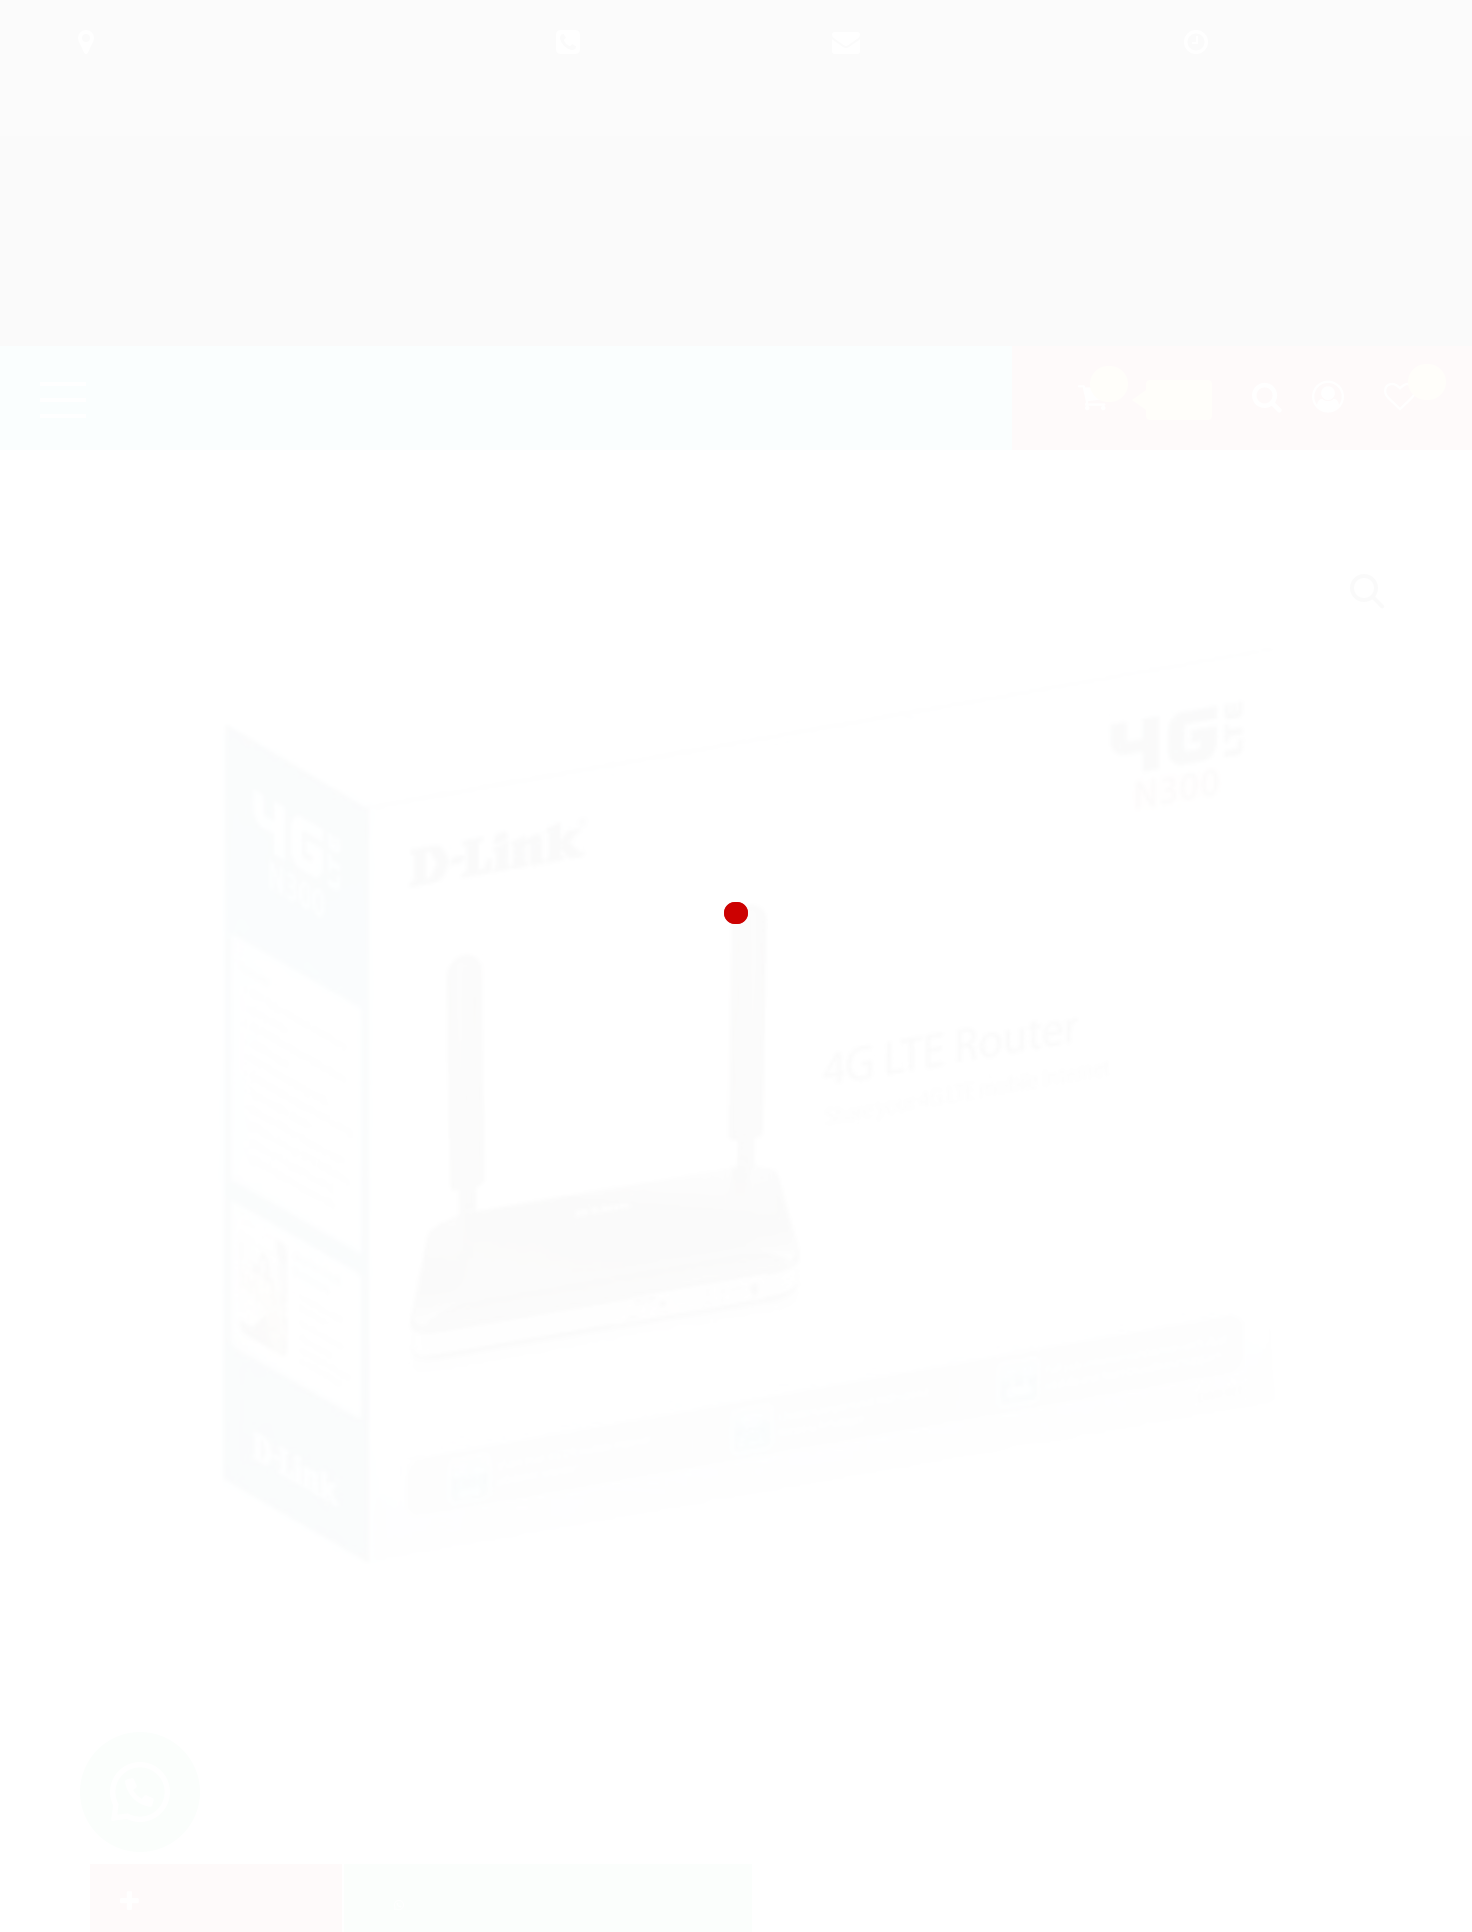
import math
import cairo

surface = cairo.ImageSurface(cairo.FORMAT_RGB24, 1472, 1932)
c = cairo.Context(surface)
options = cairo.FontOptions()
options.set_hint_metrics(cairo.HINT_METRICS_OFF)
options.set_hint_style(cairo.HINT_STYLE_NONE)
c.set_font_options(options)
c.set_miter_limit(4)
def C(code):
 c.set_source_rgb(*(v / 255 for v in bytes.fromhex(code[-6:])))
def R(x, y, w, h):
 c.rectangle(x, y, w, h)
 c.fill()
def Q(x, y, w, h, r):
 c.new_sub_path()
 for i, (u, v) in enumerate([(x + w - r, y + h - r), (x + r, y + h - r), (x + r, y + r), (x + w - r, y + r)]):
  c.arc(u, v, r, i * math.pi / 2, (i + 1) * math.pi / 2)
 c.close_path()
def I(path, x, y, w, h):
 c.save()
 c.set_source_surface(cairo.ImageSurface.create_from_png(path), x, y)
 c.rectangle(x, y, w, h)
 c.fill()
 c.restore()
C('ffffff')
c.paint()
C('fbfbfb')
R(0,0,1472,136)
I('1.png',78,30,16,24)
I('2.png',556,30,24,24)
I('3.png',832,32,28,22)
I('4.png',1184,30,24,24)
C('fafafa')
R(0,136,1472,210)
C('fafefe')
R(0,346,1012,104)
C('ffffff')
R(40,398,46,4)
R(40,382,46,4)
R(40,414,46,4)
C('fefafa')
R(1012,346,460,104)
I('5.png',1078,385,28,26)
C('fffefa')
Q(1090,366,38,36,18)
c.fill()
Q(1146,380,66,40,4)
c.fill()
c.new_path()
c.move_to(1146,390)
c.line_to(1146,410)
c.line_to(1132,400)
c.close_path()
c.fill()
I('6.png',1252,382,30,31)
I('7.png',1312,380,32,33)
I('8.png',1384,382,31,29)
Q(1408,364,38,36,18)
c.fill()
c.arc(1364,588,12,0,2 * math.pi)
C('fafafa')
c.set_line_width(4)
c.stroke()
c.new_path()
c.move_to(1372.5,596.5)
c.curve_to(1373,596,1374.5,596,1375,596.5)
c.line_to(1383.5,605)
c.curve_to(1384.5,606,1384.5,607,1383.5,608)
c.curve_to(1383,608.5,1381.5,608.5,1381,608)
c.line_to(1372.5,599.5)
c.curve_to(1371.5,598.5,1371.5,597.5,1372.5,596.5)
c.close_path()
c.fill()
I('9.png',200,639,1084,934)
C('fefafa')
R(90,1864,252,68)
I('10.png',120,1891,19,19)
C('fbfefc')
R(344,1864,408,68)
I('11.png',394,1900,10,10)
c.set_source_rgba(0.8,0,0,0.98)
Q(724,902,24,22,11)
c.fill()
c.set_source_rgba(0.8,0,0,0.69)
Q(724,902,24,22,11)
c.fill()
c.set_source_rgba(0.8,0,0,0.41)
Q(724,902,24,22,11)
c.fill()
C('fbfefc')
c.arc(140,1792,60,0,2 * math.pi)
c.fill()
I('12.png',110,1762,60,60)
surface.write_to_png('o.png')
